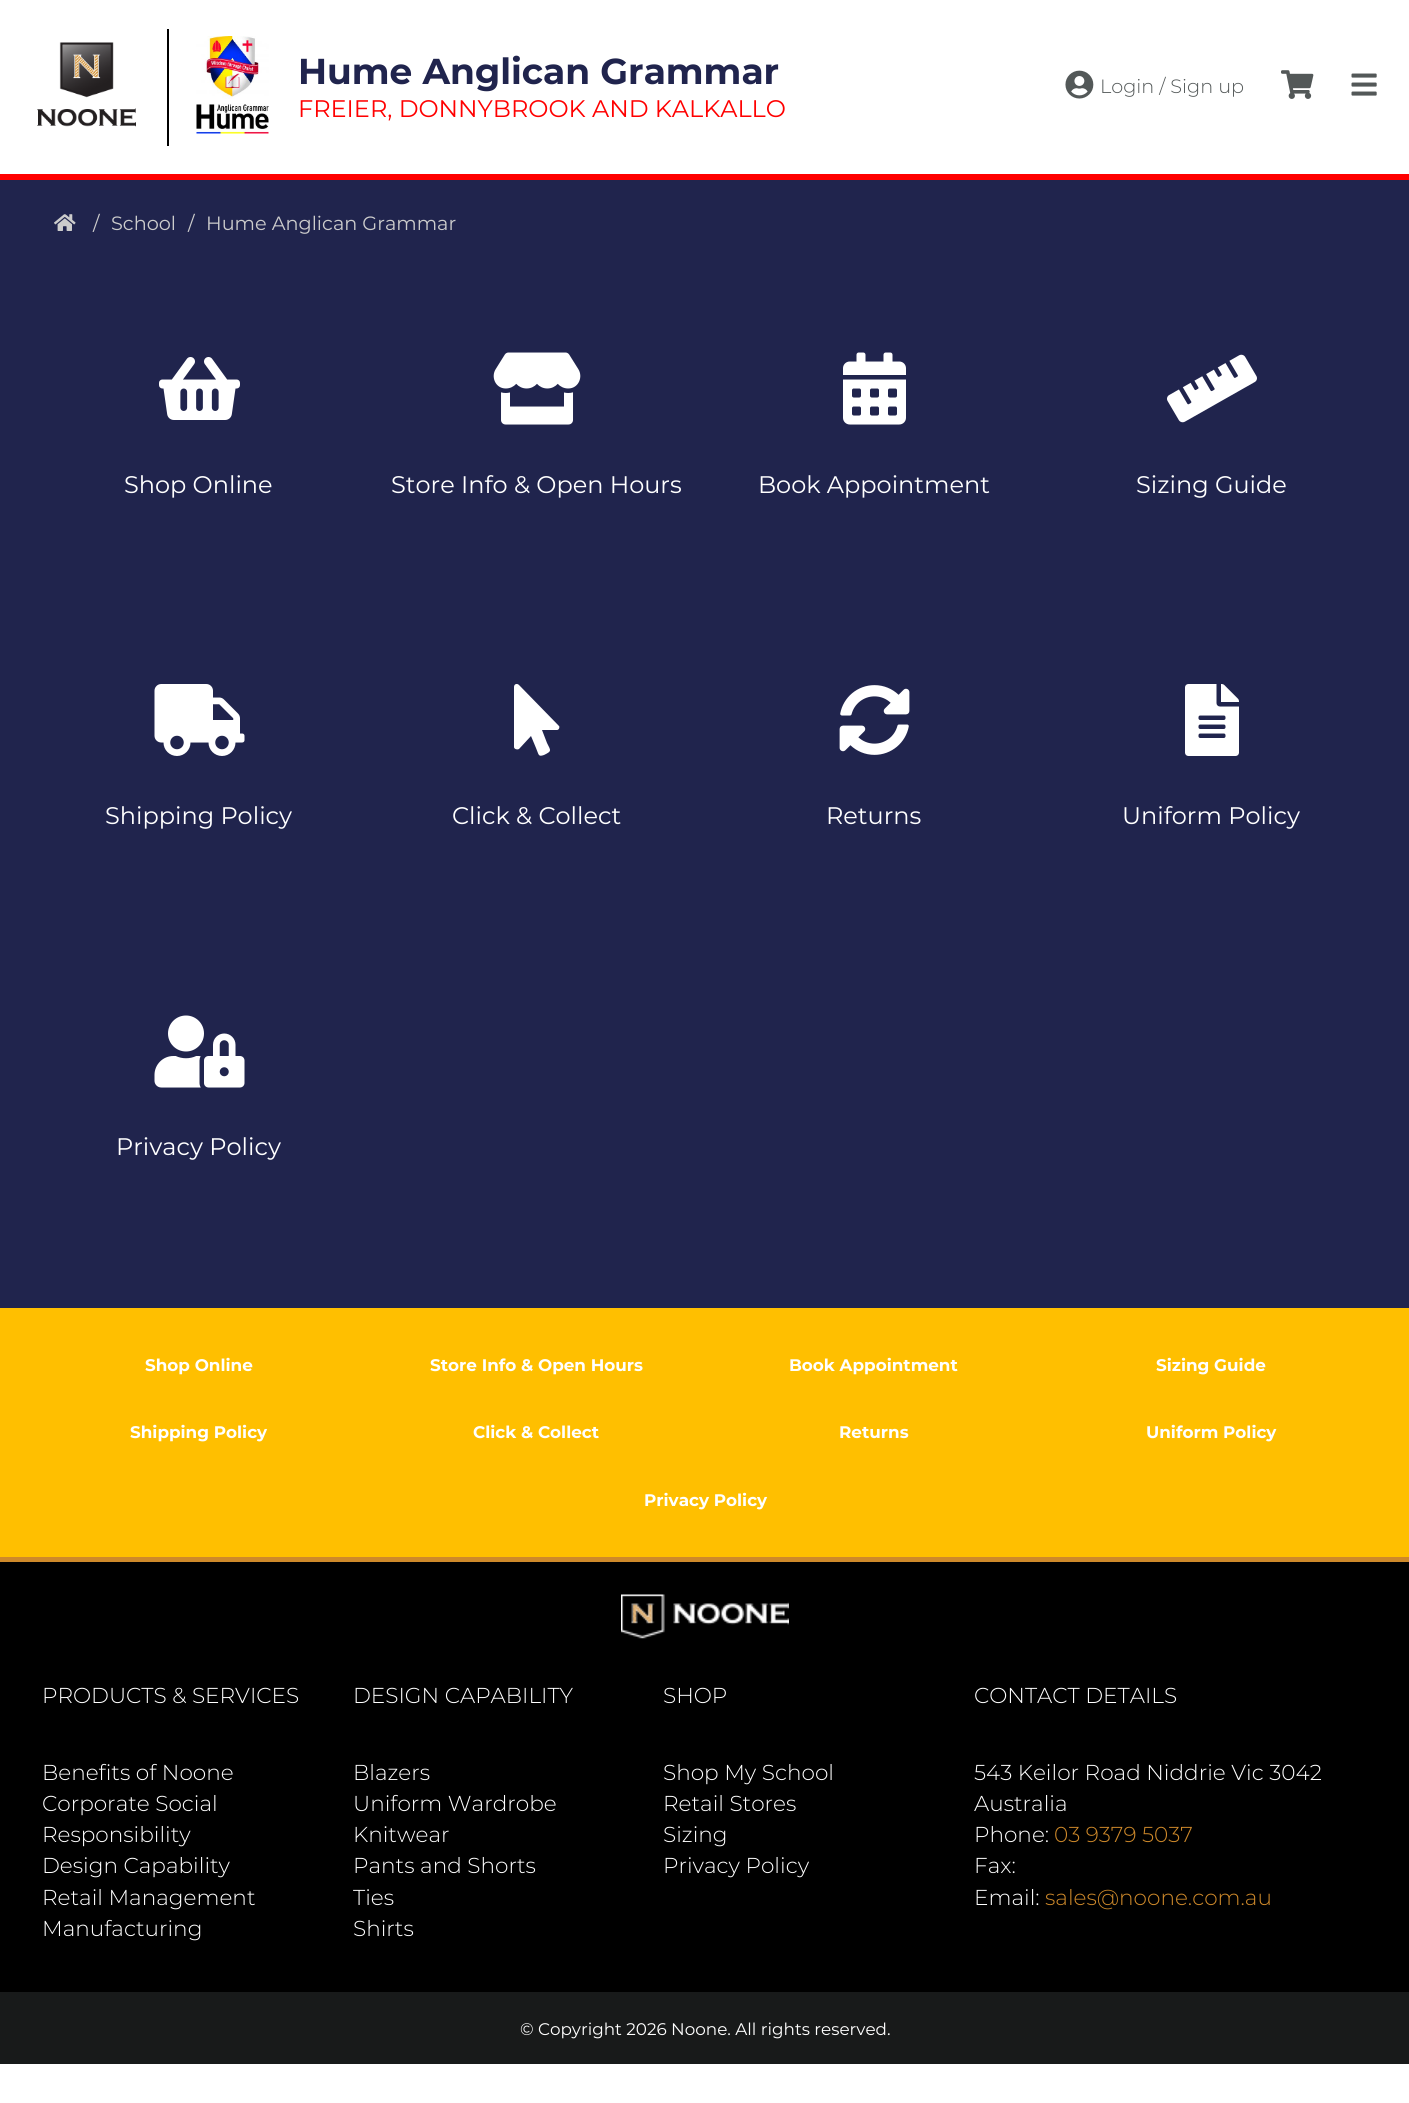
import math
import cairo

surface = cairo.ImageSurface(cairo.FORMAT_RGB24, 1409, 2103)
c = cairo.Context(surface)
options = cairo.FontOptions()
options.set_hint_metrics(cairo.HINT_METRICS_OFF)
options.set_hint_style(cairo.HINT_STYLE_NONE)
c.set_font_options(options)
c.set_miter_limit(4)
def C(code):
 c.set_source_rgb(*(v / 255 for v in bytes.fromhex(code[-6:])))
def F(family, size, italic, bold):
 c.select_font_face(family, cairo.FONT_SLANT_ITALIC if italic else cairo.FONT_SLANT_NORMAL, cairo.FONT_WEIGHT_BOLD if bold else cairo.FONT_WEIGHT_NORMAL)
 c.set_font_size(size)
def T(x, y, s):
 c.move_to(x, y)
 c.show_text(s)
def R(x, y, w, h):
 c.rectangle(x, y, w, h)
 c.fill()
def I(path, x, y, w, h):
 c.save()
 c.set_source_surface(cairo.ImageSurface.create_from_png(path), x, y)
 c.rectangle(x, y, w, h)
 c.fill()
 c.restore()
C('ffffff')
c.paint()
C('20244d')
R(0,180,1409,1128)
C('ff0000')
R(0,174,1409,6)
C('000000')
R(167,29,2,117)
I('1.png',37,42,99,85)
I('2.png',196,36,73,98)
F('Montserrat',36,0,1)
C('20244d')
T(298,84,'Hume Anglican Grammar')
F('Montserrat',24,0,0)
C('ff0000')
T(298,117,'FREIER, DONNYBROOK AND KALKALLO')
I('3.png',1065,70,29,29)
F('Montserrat Light',19.25,0,0)
C('535858')
T(1100,93,'Login / Sign up')
I('4.png',1281,70,33,29)
I('5.png',1351,73,26,23)
I('6.png',54,214,22,17)
F('Montserrat',19.25,0,0)
C('cccccc')
T(93,230,'/')
T(111,230,'School')
T(188,230,'/')
T(206,230,'Hume Anglican Grammar')
I('7.png',159,357,81,63)
F('Montserrat',24,0,0)
C('ffffff')
T(124,493,'Shop Online')
I('8.png',493,352,88,73)
T(391,493,'Store Info & Open Hours')
I('9.png',843,352,63,73)
T(758,493,'Book Appointment')
I('10.png',1167,354,90,69)
T(1136,493,'Sizing Guide')
I('11.png',154,684,91,72)
T(105,824,'Shipping Policy')
c.new_path()
c.move_to(557,730)
c.line_to(542,730)
c.line_to(547,743)
c.curve_to(551,751,552,751,544,755)
c.curve_to(538,757,539,755,536,748)
c.line_to(531,736)
c.line_to(519,749)
c.curve_to(517,750,514,749,514,747)
c.line_to(514,687)
c.curve_to(514,684,517,683,519,685)
c.line_to(559,726)
c.curve_to(560,727,559,730,557,730)
c.close_path()
c.fill()
T(452,824,'Click & Collect')
I('12.png',839,685,71,70)
T(826,824,'Returns')
I('13.png',1185,684,54,72)
T(1122,824,'Uniform Policy')
I('14.png',154,1015,91,73)
T(116,1155,'Privacy Policy')
C('ffbf00')
R(0,1308,1409,249)
C('ce892a')
R(0,1557,1409,5)
F('Montserrat',16.8,0,1)
C('ffffff')
T(145,1371,'Shop Online')
T(430,1371,'Store Info & Open Hours')
T(789,1371,'Book Appointment')
T(1156,1371,'Sizing Guide')
T(130,1438,'Shipping Policy')
T(473,1438,'Click & Collect')
T(839,1438,'Returns')
T(1146,1438,'Uniform Policy')
T(644,1506,'Privacy Policy')
C('000000')
R(0,1562,1409,430)
I('15.png',621,1594,168,45)
F('Montserrat Light',21.6,0,0)
C('ffffff')
T(42,1703,'PRODUCTS & SERVICES')
T(42,1780,'Benefits of Noone')
T(42,1811,'Corporate Social')
T(42,1842,'Responsibility')
T(42,1873,'Design Capability')
T(42,1905,'Retail Management')
T(42,1936,'Manufacturing')
T(353,1703,'DESIGN CAPABILITY')
T(353,1780,'Blazers')
T(353,1811,'Uniform Wardrobe')
T(353,1842,'Knitwear')
T(353,1873,'Pants and Shorts')
T(353,1905,'Ties')
T(353,1936,'Shirts')
T(663,1703,'SHOP')
T(663,1780,'Shop My School')
T(663,1811,'Retail Stores')
T(663,1842,'Sizing')
T(663,1873,'Privacy Policy')
T(974,1703,'CONTACT DETAILS')
T(974,1780,'543 Keilor Road Niddrie Vic 3042')
T(974,1811,'Australia')
T(974,1842,'Phone:')
C('ce892a')
T(1054,1842,'03 9379 5037')
C('ffffff')
T(974,1873,'Fax:')
T(974,1905,'Email:')
C('ce892a')
T(1045,1905,'sales@noone.com.au')
C('181a1a')
R(0,1992,1409,72)
F('Montserrat',16.8,0,0)
C('ffffff')
T(520,2035,'© Copyright 2026 Noone. All rights reserved.')
surface.write_to_png('o.png')
